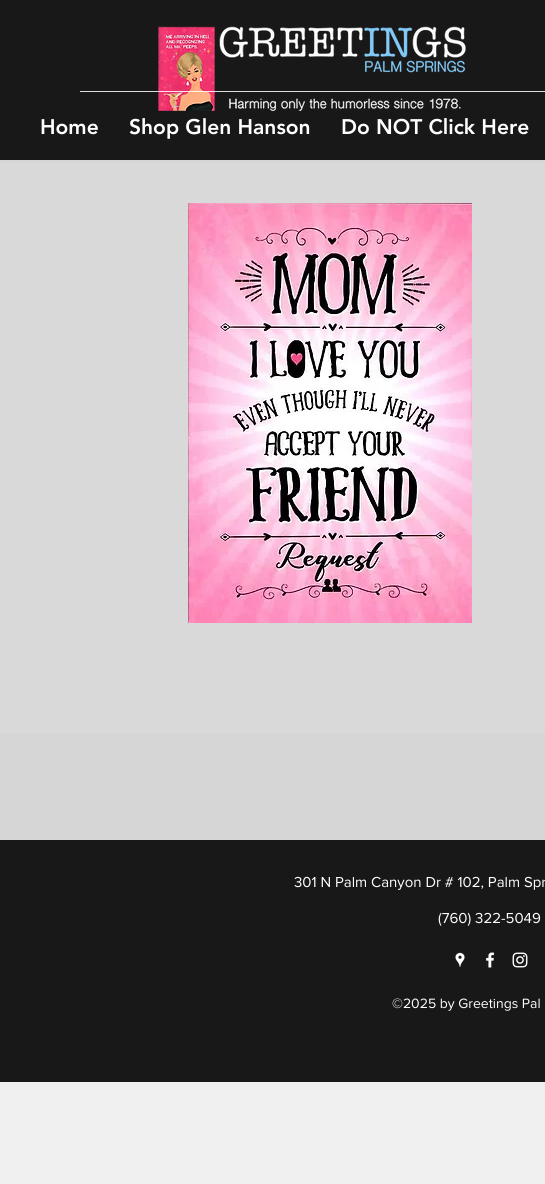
import math
import cairo

surface = cairo.ImageSurface(cairo.FORMAT_RGB24, 545, 1184)
c = cairo.Context(surface)
options = cairo.FontOptions()
options.set_hint_metrics(cairo.HINT_METRICS_OFF)
options.set_hint_style(cairo.HINT_STYLE_NONE)
c.set_font_options(options)
c.set_miter_limit(4)
def C(code):
 c.set_source_rgb(*(v / 255 for v in bytes.fromhex(code[-6:])))
def F(family, size, italic, bold):
 c.select_font_face(family, cairo.FONT_SLANT_ITALIC if italic else cairo.FONT_SLANT_NORMAL, cairo.FONT_WEIGHT_BOLD if bold else cairo.FONT_WEIGHT_NORMAL)
 c.set_font_size(size)
def T(x, y, s):
 c.move_to(x, y)
 c.show_text(s)
def R(x, y, w, h):
 c.rectangle(x, y, w, h)
 c.fill()
def I(path, x, y, w, h):
 c.save()
 c.set_source_surface(cairo.ImageSurface.create_from_png(path), x, y)
 c.rectangle(x, y, w, h)
 c.fill()
 c.restore()
C('f0f0f0')
c.paint()
C('181818')
R(0,0,545,160)
I('1.png',158,26,308,85)
c.set_source_rgba(1,1,1,0.85)
R(80,91,465,1)
F('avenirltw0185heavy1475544 Black',21,0,0)
C('ffffff')
T(40,134,'Home')
T(129,134,'Shop Glen Hanson')
T(341,134,'Do NOT Click Here')
C('d6d6d6')
R(0,160,545,680)
C('d9d9d9')
R(0,163,545,570)
I('2.png',188,203,284,420)
C('181818')
R(0,840,545,242)
F('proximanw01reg',15,0,0)
C('ffffff')
T(294,887,'301 N Palm Canyon Dr # 102, Palm Spr')
T(438,923,'(760) 322-5049')
I('3.png',455,952,10,15)
I('4.png',486,952,9,16)
I('5.png',512,952,16,16)
F('proximanw01reg',14,0,0)
T(392,1008,'©2025 by Greetings Pal')
surface.write_to_png('o.png')
